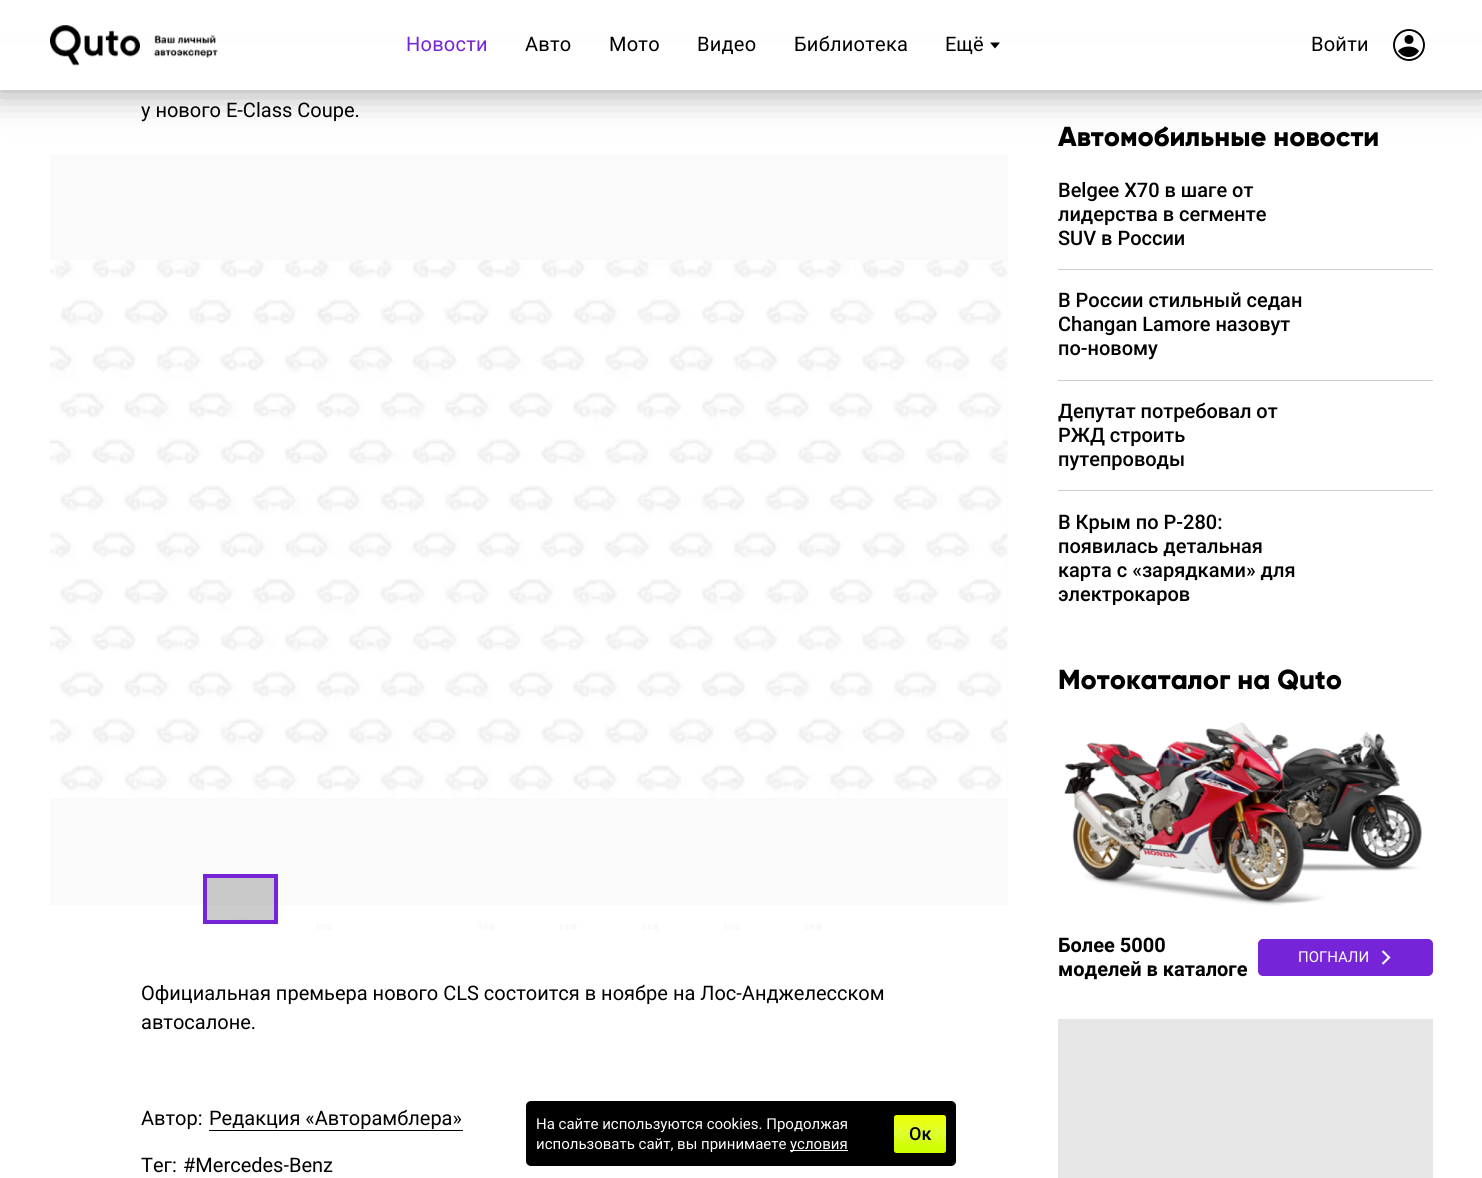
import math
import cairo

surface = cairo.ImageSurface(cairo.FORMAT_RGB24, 1482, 1178)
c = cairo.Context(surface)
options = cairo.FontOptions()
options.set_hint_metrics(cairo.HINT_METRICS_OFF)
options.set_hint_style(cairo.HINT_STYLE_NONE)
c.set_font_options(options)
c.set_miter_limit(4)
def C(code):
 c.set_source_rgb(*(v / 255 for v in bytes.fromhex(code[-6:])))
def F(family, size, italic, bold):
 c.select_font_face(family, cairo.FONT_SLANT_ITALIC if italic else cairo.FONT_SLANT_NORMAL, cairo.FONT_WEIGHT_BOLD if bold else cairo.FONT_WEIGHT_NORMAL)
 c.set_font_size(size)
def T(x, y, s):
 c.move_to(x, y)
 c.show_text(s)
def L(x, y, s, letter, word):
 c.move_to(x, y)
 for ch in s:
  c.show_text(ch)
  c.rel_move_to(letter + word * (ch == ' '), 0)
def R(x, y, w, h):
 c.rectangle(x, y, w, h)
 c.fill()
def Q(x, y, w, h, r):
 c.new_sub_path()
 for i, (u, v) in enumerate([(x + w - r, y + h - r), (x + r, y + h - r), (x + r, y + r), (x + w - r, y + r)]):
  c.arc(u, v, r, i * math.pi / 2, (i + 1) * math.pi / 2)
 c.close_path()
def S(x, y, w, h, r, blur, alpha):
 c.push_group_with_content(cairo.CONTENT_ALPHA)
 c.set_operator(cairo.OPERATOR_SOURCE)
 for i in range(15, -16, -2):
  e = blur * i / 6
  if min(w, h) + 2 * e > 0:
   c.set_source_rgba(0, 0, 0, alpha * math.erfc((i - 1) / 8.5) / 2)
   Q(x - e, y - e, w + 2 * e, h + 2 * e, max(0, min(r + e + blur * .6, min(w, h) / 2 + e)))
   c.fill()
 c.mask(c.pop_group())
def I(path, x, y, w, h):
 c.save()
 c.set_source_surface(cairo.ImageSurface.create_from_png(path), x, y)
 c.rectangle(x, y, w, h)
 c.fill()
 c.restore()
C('ffffff')
c.paint()
C('cccccc')
R(207,905,67,15)
C('000000')
S(0,78,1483,12,0,19,.4)
C('ffffff')
R(0,43,1482,47)
I('1.png',50,25,168,41)
F('Roboto',20,0,0)
C('7524d7')
L(406,51,'Новости',.25,0)
C('000000')
L(525,51,'Авто',.25,0)
L(609,51,'Мото',.25,0)
L(697,51,'Видео',.25,0)
L(794,51,'Библиотека',.25,0)
T(945,51,'Ещё')
c.new_path()
c.move_to(990,42.5)
c.line_to(1000,42.5)
c.line_to(995,48.5)
c.close_path()
c.fill()
L(1311,51,'Войти',.25,0)
c.new_path()
c.arc(1409,45,15,0,2 * math.pi)
c.set_line_width(1.9)
c.stroke()
c.set_fill_rule(cairo.FILL_RULE_EVEN_ODD)
c.new_path()
c.move_to(1419,51)
c.curve_to(1414.5,59,1403,59,1398,51)
c.curve_to(1403,45,1414.5,45,1419,51)
c.fill()
c.arc(1409,39.5,4.5,0,2 * math.pi)
c.fill()
T(141,117,'у нового E-Сlass Coupe.')
C('fafafa')
R(50,155,958,750)
C('c8c8c8')
R(207,878,67,27)
I('2.png',50,260,958,538)
I('3.png',234,917,16,3)
c.rectangle(205,876,71,46)
C('7524d7')
c.set_line_width(4)
c.stroke()
I('4.png',316,924,16,6)
I('5.png',479,923,16,7)
I('6.png',560,924,17,6)
I('7.png',642,924,16,6)
I('5.png',724,923,16,7)
I('6.png',805,924,17,6)
C('000000')
T(141,1000,'Официальная премьера нового CLS состоится в ноябре на Лос-Анджелесском')
T(141,1029,'автосалоне.')
T(141,1125,'Автор:')
T(209,1125,'Редакция «Авторамблера»')
R(209,1130,254,1)
T(141,1172,'Тег:')
T(183,1172,'#Mercedes-Benz')
F('Gilroy ExtraBold',27.5,0,0)
T(1058,146,'Автомобильные новости')
F('Roboto Medium',20,0,0)
T(1058,197,'Belgee X70 в шаге от')
T(1058,221,'лидерства в сегменте')
T(1058,245,'SUV в России')
C('cccccc')
R(1058,269,375,1)
C('000000')
T(1058,307,'В России стильный седан')
T(1058,331,'Changan Lamore назовут')
T(1058,355,'по-новому')
C('cccccc')
R(1058,380,375,1)
c.save()
c.set_fill_rule(cairo.FILL_RULE_WINDING)
c.rectangle(1058,400,250,71)
c.clip()
C('000000')
T(1058,418,'Депутат потребовал от')
c.restore()
C('000000')
T(1058,442,'РЖД строить')
T(1058,466,'путепроводы')
C('cccccc')
R(1058,490,375,1)
C('000000')
T(1058,529,'В Крым по Р-280:')
T(1058,553,'появилась детальная')
T(1058,577,'карта с «зарядками» для')
T(1058,601,'электрокаров')
F('Gilroy ExtraBold',27.5,0,0)
T(1058,689,'Мотокаталог на Quto')
I('8.png',1064,722,358,184)
F('Roboto',20,0,1)
T(1058,952,'Более 5000')
T(1058,976,'моделей в каталоге')
C('7524d7')
Q(1258,939,175,37,5)
c.fill()
F('Roboto',15,0,0)
C('ffffff')
T(1298,962,'ПОГНАЛИ')
c.new_path()
c.move_to(1382.5,964)
c.line_to(1389,957.5)
c.line_to(1382.5,951)
c.set_line_width(2.1)
c.stroke()
C('e6e6e6')
R(1058,1019,375,159)
C('000000')
Q(526,1101,430,65,5)
c.fill()
C('ffffff')
T(536,1129,'На сайте используются cookies. Продолжая')
T(536,1149,'использовать сайт, вы принимаете')
R(790,1150,58,1)
T(790,1149,'условия')
gradient = cairo.LinearGradient(920,1153,920,1115)
gradient.add_color_stop_rgba(.11,0.808,1,0,1)
gradient.add_color_stop_rgba(.54,0.878,1,0.188,1)
gradient.add_color_stop_rgba(1,0.929,1,0,1)
c.set_source(gradient)
Q(894,1115,52,38,2.5)
c.fill()
F('Roboto Medium',18,0,0)
C('000000')
T(909,1140,'Ок')
surface.write_to_png('o.png')
